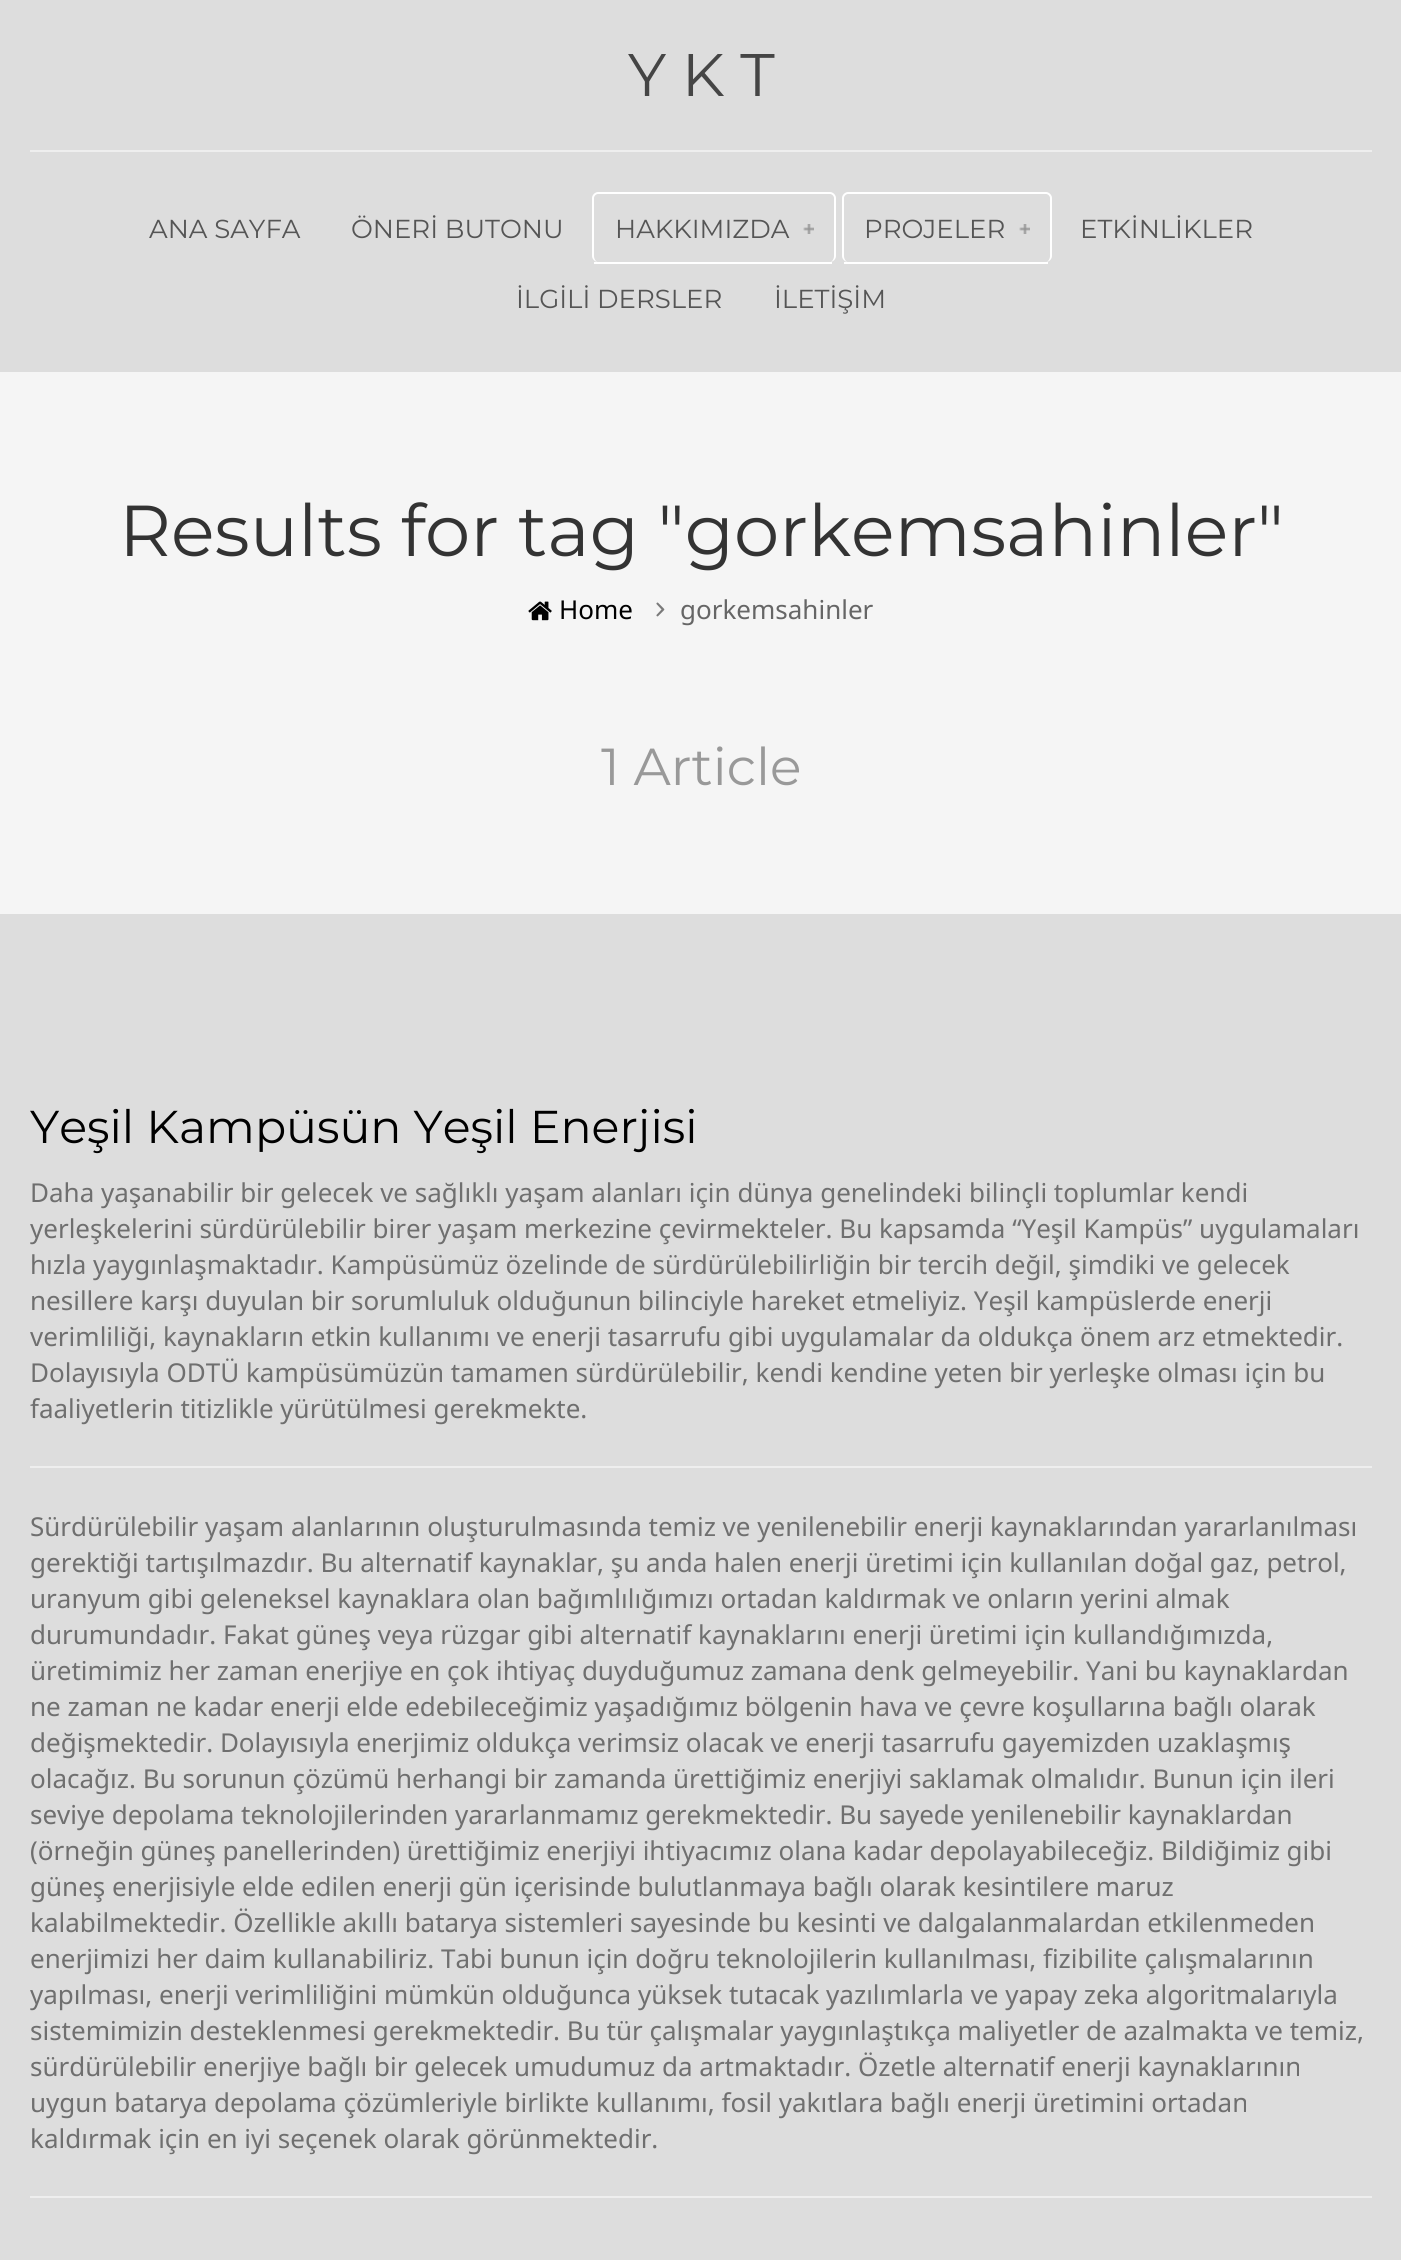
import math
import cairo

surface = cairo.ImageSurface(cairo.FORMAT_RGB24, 1401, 2260)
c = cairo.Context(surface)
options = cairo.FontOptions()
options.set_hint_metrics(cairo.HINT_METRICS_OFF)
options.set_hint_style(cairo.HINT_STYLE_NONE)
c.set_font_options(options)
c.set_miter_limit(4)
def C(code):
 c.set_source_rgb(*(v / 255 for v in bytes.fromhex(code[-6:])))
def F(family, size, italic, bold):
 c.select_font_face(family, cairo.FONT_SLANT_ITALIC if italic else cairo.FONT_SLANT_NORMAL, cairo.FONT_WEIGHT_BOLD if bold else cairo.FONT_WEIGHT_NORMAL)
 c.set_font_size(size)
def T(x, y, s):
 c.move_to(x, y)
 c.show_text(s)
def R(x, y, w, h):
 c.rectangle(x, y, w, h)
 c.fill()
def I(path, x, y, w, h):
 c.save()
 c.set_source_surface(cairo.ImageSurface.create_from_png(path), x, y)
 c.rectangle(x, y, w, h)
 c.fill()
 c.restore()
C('dddddd')
c.paint()
F('Montserrat',60,0,0)
C('454545')
T(628,96,'Y K T')
C('eeeeee')
R(30,150,1342,2)
F('Montserrat',26,0,0)
C('555555')
T(149,238,'ANA SAYFA')
T(351,238,'ÖNERİ BUTONU')
C('ffffff')
c.set_fill_rule(cairo.FILL_RULE_EVEN_ODD)
c.new_path()
c.move_to(598,192)
c.line_to(830,192)
c.curve_to(833,192,836,195,836,198)
c.line_to(836,256)
c.curve_to(836,259,833,262,830,262)
c.line_to(598,262)
c.curve_to(595,262,592,259,592,256)
c.line_to(592,198)
c.curve_to(592,195,595,192,598,192)
c.close_path()
c.move_to(598,194)
c.line_to(830,194)
c.curve_to(832,194,834,196,834,198)
c.line_to(834,256)
c.curve_to(834,259,832,262,830,262)
c.line_to(598,262)
c.curve_to(596,262,594,259,594,256)
c.line_to(594,198)
c.curve_to(594,196,596,194,598,194)
c.close_path()
c.fill()
C('555555')
T(615,238,'HAKKIMIZDA')
I('1.png',803,224,11,10)
C('ffffff')
R(594,262,238,2)
c.new_path()
c.move_to(848,192)
c.line_to(1046,192)
c.curve_to(1049,192,1052,195,1052,198)
c.line_to(1052,256)
c.curve_to(1052,259,1049,262,1046,262)
c.line_to(848,262)
c.curve_to(845,262,842,259,842,256)
c.line_to(842,198)
c.curve_to(842,195,845,192,848,192)
c.close_path()
c.move_to(848,194)
c.line_to(1046,194)
c.curve_to(1048,194,1050,196,1050,198)
c.line_to(1050,256)
c.curve_to(1050,259,1048,262,1046,262)
c.line_to(848,262)
c.curve_to(846,262,844,259,844,256)
c.line_to(844,198)
c.curve_to(844,196,846,194,848,194)
c.close_path()
c.fill()
C('555555')
T(864,238,'PROJELER')
I('1.png',1019,224,11,10)
C('ffffff')
R(844,262,204,2)
C('555555')
T(1080,238,'ETKİNLİKLER')
T(516,308,'İLGİLİ DERSLER')
T(774,308,'İLETİŞİM')
C('f5f5f5')
R(0,372,1401,542)
F('Montserrat',72,0,0)
C('333333')
T(119,556,'Results for tag "gorkemsahinler"')
I('2.png',528,601,24,20)
F('Noto Sans',26,0,0)
C('000000')
T(559,619,'Home')
I('3.png',656,602,9,15)
C('666666')
T(680,619,'gorkemsahinler')
F('Montserrat',52,0,0)
C('999999')
T(601,785,'1 Article')
F('Montserrat',46,0,0)
C('000000')
T(30,1143,'Yeşil Kampüsün Yeşil Enerjisi')
F('Noto Sans',26,0,0)
C('6f6f6f')
T(30,1202,'Daha yaşanabilir bir gelecek ve sağlıklı yaşam alanları için dünya genelindeki bilinçli toplumlar kendi')
T(30,1238,'yerleşkelerini sürdürülebilir birer yaşam merkezine çevirmekteler. Bu kapsamda “Yeşil Kampüs” uygulamaları')
T(30,1274,'hızla yaygınlaşmaktadır. Kampüsümüz özelinde de sürdürülebilirliğin bir tercih değil, şimdiki ve gelecek')
T(30,1310,'nesillere karşı duyulan bir sorumluluk olduğunun bilinciyle hareket etmeliyiz. Yeşil kampüslerde enerji')
T(30,1346,'verimliliği, kaynakların etkin kullanımı ve enerji tasarrufu gibi uygulamalar da oldukça önem arz etmektedir.')
T(30,1382,'Dolayısıyla ODTÜ kampüsümüzün tamamen sürdürülebilir, kendi kendine yeten bir yerleşke olması için bu')
T(30,1418,'faaliyetlerin titizlikle yürütülmesi gerekmekte.')
C('eeeeee')
R(30,1466,1342,2)
C('6f6f6f')
T(30,1536,'Sürdürülebilir yaşam alanlarının oluşturulmasında temiz ve yenilenebilir enerji kaynaklarından yararlanılması')
T(30,1572,'gerektiği tartışılmazdır. Bu alternatif kaynaklar, şu anda halen enerji üretimi için kullanılan doğal gaz, petrol,')
T(30,1608,'uranyum gibi geleneksel kaynaklara olan bağımlılığımızı ortadan kaldırmak ve onların yerini almak')
T(30,1644,'durumundadır. Fakat güneş veya rüzgar gibi alternatif kaynaklarını enerji üretimi için kullandığımızda,')
T(30,1680,'üretimimiz her zaman enerjiye en çok ihtiyaç duyduğumuz zamana denk gelmeyebilir. Yani bu kaynaklardan')
T(30,1716,'ne zaman ne kadar enerji elde edebileceğimiz yaşadığımız bölgenin hava ve çevre koşullarına bağlı olarak')
T(30,1752,'değişmektedir. Dolayısıyla enerjimiz oldukça verimsiz olacak ve enerji tasarrufu gayemizden uzaklaşmış')
T(30,1788,'olacağız. Bu sorunun çözümü herhangi bir zamanda ürettiğimiz enerjiyi saklamak olmalıdır. Bunun için ileri')
T(30,1824,'seviye depolama teknolojilerinden yararlanmamız gerekmektedir. Bu sayede yenilenebilir kaynaklardan')
T(30,1860,'(örneğin güneş panellerinden) ürettiğimiz enerjiyi ihtiyacımız olana kadar depolayabileceğiz. Bildiğimiz gibi')
T(30,1896,'güneş enerjisiyle elde edilen enerji gün içerisinde bulutlanmaya bağlı olarak kesintilere maruz')
T(30,1932,'kalabilmektedir. Özellikle akıllı batarya sistemleri sayesinde bu kesinti ve dalgalanmalardan etkilenmeden')
T(30,1968,'enerjimizi her daim kullanabiliriz. Tabi bunun için doğru teknolojilerin kullanılması, fizibilite çalışmalarının')
T(30,2004,'yapılması, enerji verimliliğini mümkün olduğunca yüksek tutacak yazılımlarla ve yapay zeka algoritmalarıyla')
T(30,2040,'sistemimizin desteklenmesi gerekmektedir. Bu tür çalışmalar yaygınlaştıkça maliyetler de azalmakta ve temiz,')
T(30,2076,'sürdürülebilir enerjiye bağlı bir gelecek umudumuz da artmaktadır. Özetle alternatif enerji kaynaklarının')
T(30,2112,'uygun batarya depolama çözümleriyle birlikte kullanımı, fosil yakıtlara bağlı enerji üretimini ortadan')
T(30,2148,'kaldırmak için en iyi seçenek olarak görünmektedir.')
C('eeeeee')
R(30,2196,1342,2)
surface.write_to_png('o.png')
